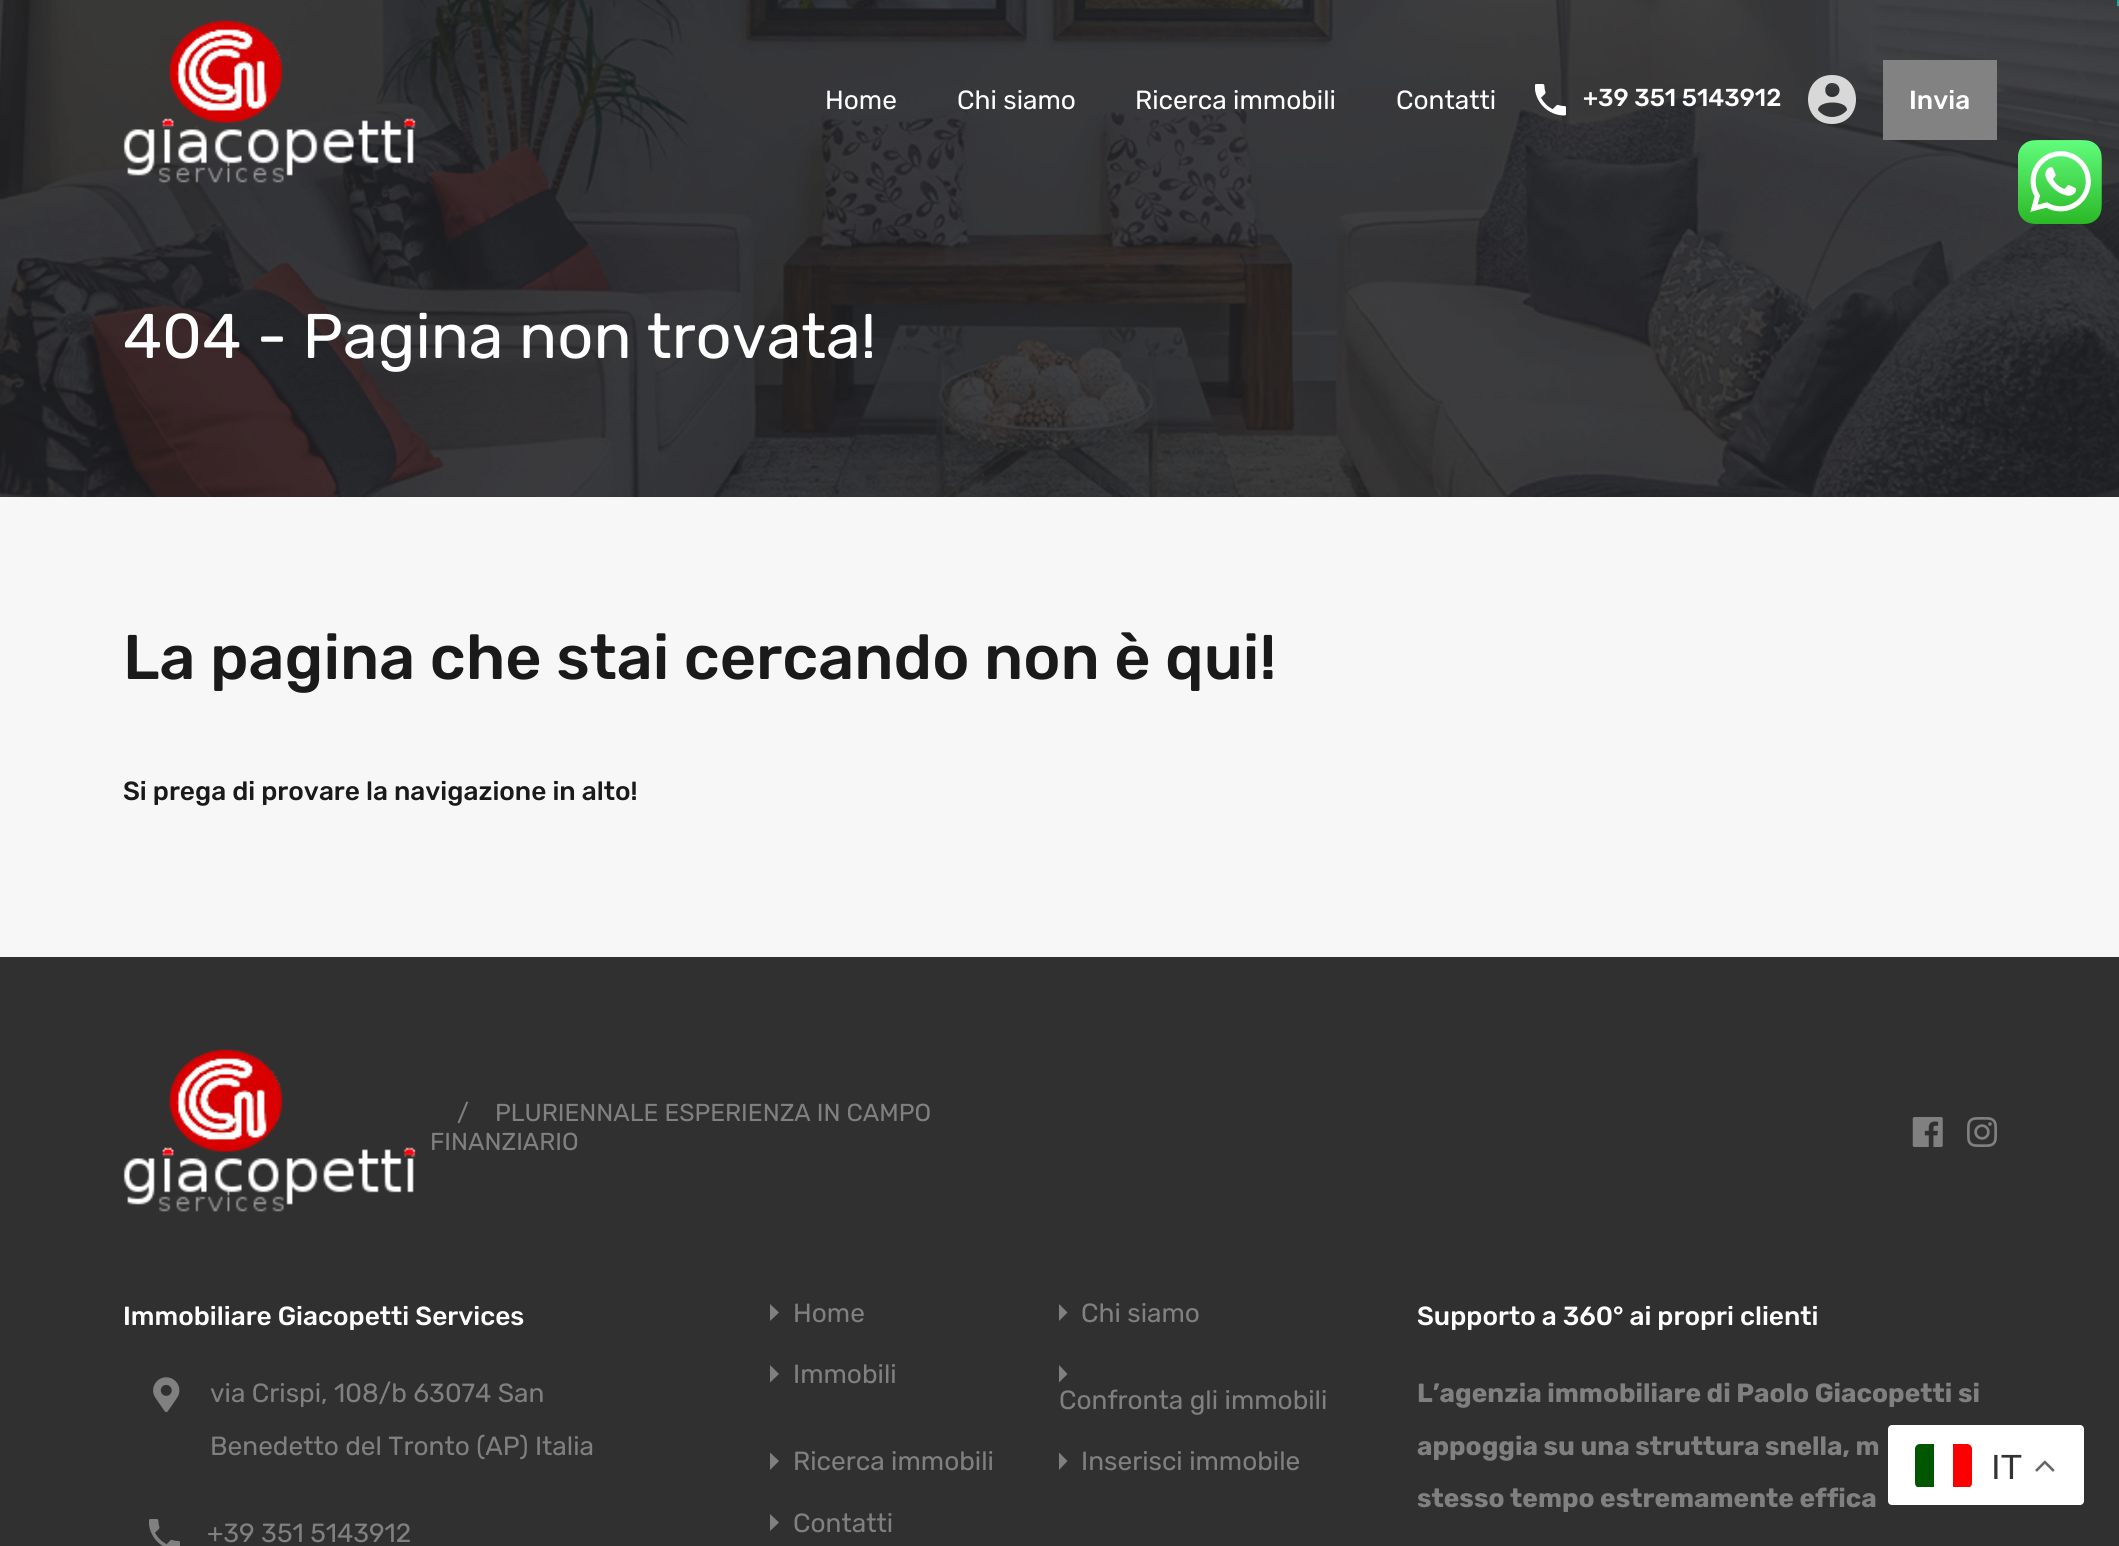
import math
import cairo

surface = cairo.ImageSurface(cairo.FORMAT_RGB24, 2119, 1546)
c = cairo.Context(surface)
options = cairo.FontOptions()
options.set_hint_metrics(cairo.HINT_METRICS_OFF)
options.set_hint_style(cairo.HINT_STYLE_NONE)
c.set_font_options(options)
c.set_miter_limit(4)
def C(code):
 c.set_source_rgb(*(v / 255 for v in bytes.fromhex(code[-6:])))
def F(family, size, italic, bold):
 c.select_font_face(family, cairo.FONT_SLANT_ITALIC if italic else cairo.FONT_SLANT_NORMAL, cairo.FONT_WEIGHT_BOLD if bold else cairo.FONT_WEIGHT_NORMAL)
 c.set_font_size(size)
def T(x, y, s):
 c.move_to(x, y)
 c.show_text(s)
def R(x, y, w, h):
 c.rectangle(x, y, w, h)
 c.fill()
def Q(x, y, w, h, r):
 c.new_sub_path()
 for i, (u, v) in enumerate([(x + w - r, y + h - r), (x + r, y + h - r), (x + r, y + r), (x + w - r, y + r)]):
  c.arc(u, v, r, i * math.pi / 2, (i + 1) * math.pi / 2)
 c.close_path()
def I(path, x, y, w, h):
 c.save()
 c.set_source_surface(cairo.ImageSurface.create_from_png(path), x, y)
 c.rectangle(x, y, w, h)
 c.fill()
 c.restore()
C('f7f7f7')
c.paint()
I('3.png',0,0,2119,497)
c.new_path()
c.move_to(2117,3)
c.line_to(2119,3)
C('1ea69a')
c.set_line_width(6.4)
c.stroke()
I('1.png',123,20,293,163)
F('Rubik',26.25,0,0)
C('ffffff')
T(825,109,'Home')
T(957,109,'Chi siamo')
T(1135,109,'Ricerca immobili')
T(1396,109,'Contatti')
I('2.png',1535,84,31,32)
F('Rubik Medium',24.5,0,0)
T(1583,106,'+39 351 5143912')
C('d8d8d8')
c.new_path()
c.move_to(1832,75)
c.curve_to(1800,75,1800,124,1832,124)
c.curve_to(1864,124,1864,75,1832,75)
c.close_path()
c.move_to(1832,83)
c.curve_to(1842,83,1842,97,1832,97)
c.curve_to(1823,97,1823,83,1832,83)
c.close_path()
c.move_to(1832,117)
c.curve_to(1826,117,1821,114,1818,110)
c.curve_to(1818,100,1847,100,1847,110)
c.curve_to(1844,114,1838,117,1832,117)
c.close_path()
c.fill()
C('828282')
R(1883,60,114,80)
F('Rubik Medium',26.25,0,0)
C('ffffff')
T(1909,109,'Invia')
F('Rubik',63,0,0)
T(123,358,'404 - Pagina non trovata!')
F('Rubik Medium',63,0,0)
C('1a1a1a')
T(123,679,'La pagina che stai cercando non è qui!')
F('Rubik Medium',26.25,0,0)
T(123,800,'Si prega di provare la navigazione in alto!')
C('303030')
R(0,957,2119,589)
I('4.png',123,1049,293,163)
F('Rubik',24.5,0,0)
C('808080')
T(457,1121,'/')
T(495,1121,'PLURIENNALE ESPERIENZA IN CAMPO')
T(430,1150,'FINANZIARIO')
I('5.png',1912,1117,31,30)
I('6.png',1967,1117,30,30)
F('Rubik Medium',26.25,0,0)
C('ffffff')
T(123,1325,'Immobiliare Giacopetti Services')
I('7.png',153,1377,27,35)
F('Rubik',26.25,0,0)
C('808080')
T(210,1402,'via Crispi, 108/b 63074 San')
T(210,1455,'Benedetto del Tronto (AP) Italia')
I('8.png',149,1519,31,27)
T(207,1542,'+39 351 5143912')
c.new_path()
c.move_to(770,1321)
c.line_to(770,1304)
c.line_to(779,1312.5)
c.close_path()
c.fill()
T(793,1322,'Home')
c.new_path()
c.move_to(1059,1321)
c.line_to(1059,1304)
c.line_to(1067.5,1312.5)
c.close_path()
c.fill()
T(1081,1322,'Chi siamo')
c.new_path()
c.move_to(770,1382.5)
c.line_to(770,1365)
c.line_to(779,1374)
c.close_path()
c.fill()
T(793,1383,'Immobili')
c.new_path()
c.move_to(1059,1382.5)
c.line_to(1059,1365)
c.line_to(1067.5,1374)
c.close_path()
c.fill()
T(1059,1409,'Confronta gli immobili')
c.new_path()
c.move_to(770,1470)
c.line_to(770,1452.5)
c.line_to(779,1461)
c.close_path()
c.fill()
T(793,1470,'Ricerca immobili')
c.new_path()
c.move_to(1059,1470)
c.line_to(1059,1452.5)
c.line_to(1067.5,1461)
c.close_path()
c.fill()
T(1081,1470,'Inserisci immobile')
c.new_path()
c.move_to(770,1531)
c.line_to(770,1514)
c.line_to(779,1522.5)
c.close_path()
c.fill()
T(793,1532,'Contatti')
F('Rubik Medium',26.25,0,0)
C('ffffff')
T(1417,1325,'Supporto a 360° ai propri clienti')
F('Rubik',26.25,0,1)
C('808080')
T(1417,1402,'L’agenzia immobiliare di Paolo Giacopetti si')
T(1417,1455,'appoggia su una struttura snella, m')
T(1417,1507,'stesso tempo estremamente effica')
I('9.png',2018,140,84,84)
C('ffffff')
Q(1888,1425,196,80,4)
c.fill()
c.save()
Q(1915,1444,57,44,5)
c.clip()
C('005700')
c.new_path()
c.move_to(1920,1444)
c.line_to(1934,1444)
c.line_to(1934,1487)
c.line_to(1915,1487)
c.line_to(1915,1449)
c.curve_to(1915,1446,1917,1444,1920,1444)
c.close_path()
c.fill()
C('fc0000')
c.new_path()
c.move_to(1953,1444)
c.line_to(1967,1444)
c.curve_to(1970,1444,1972,1446,1972,1449)
c.line_to(1972,1487)
c.line_to(1953,1487)
c.close_path()
c.fill()
c.restore()
F('Liberation Sans',35,0,0)
C('333333')
T(1991,1479,'IT')
I('10.png',2035,1460,20,12)
surface.write_to_png('o.png')
